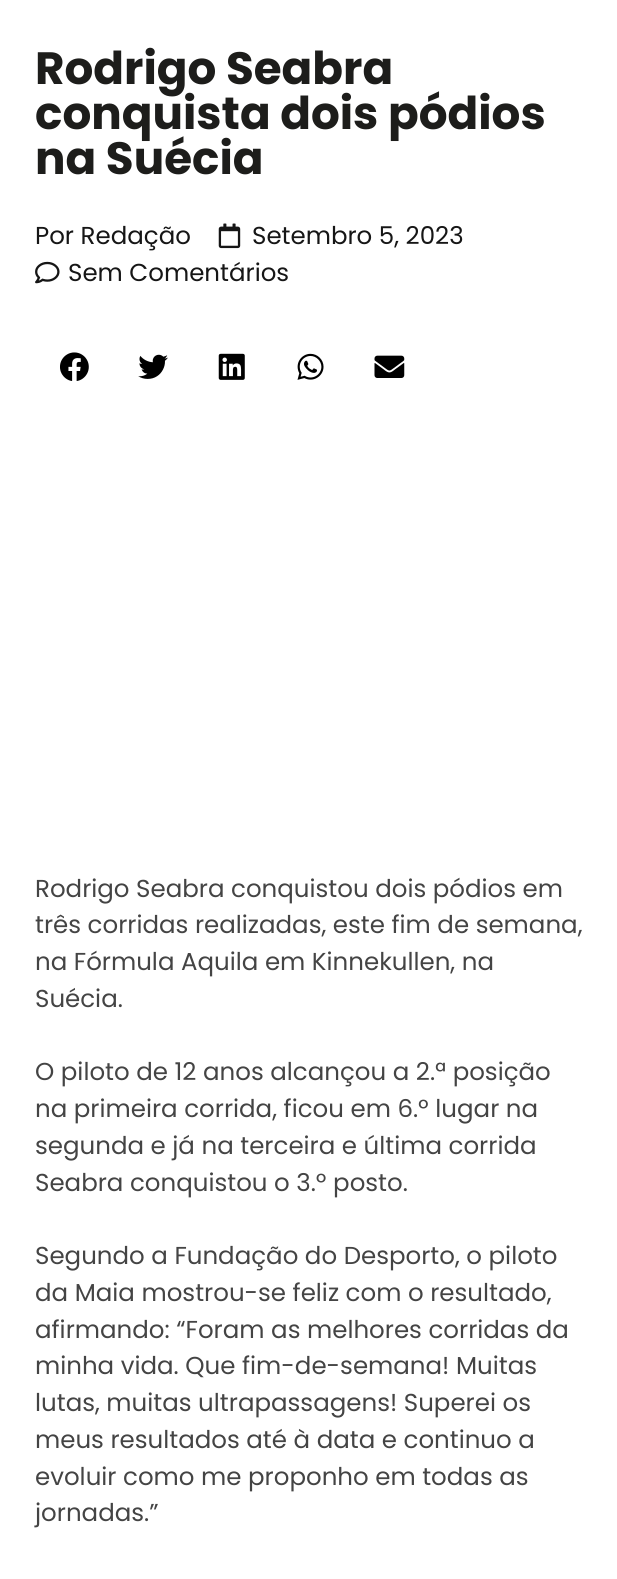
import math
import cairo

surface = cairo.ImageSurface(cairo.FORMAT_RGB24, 617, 1579)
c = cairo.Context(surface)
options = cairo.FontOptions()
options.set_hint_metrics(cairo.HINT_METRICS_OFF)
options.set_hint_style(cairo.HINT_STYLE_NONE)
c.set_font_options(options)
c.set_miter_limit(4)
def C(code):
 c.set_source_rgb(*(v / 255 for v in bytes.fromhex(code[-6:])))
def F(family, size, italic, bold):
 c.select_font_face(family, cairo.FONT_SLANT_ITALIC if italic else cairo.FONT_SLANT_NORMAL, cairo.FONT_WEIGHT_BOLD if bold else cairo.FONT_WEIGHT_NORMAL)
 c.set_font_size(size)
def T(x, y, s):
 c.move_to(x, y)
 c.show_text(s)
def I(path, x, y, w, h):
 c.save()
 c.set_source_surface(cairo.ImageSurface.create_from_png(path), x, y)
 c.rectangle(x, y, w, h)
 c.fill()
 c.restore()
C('ffffff')
c.paint()
F('Poppins',45.25,0,1)
C('1d1d1b')
T(35,84,'Rodrigo Seabra')
T(35,129,'conquista dois pódios')
T(35,174,'na Suécia')
F('Poppins',24.5,0,0)
C('161616')
T(35,244,'Por Redação')
I('1.png',218,223,23,26)
T(252,244,'Setembro 5, 2023')
I('2.png',35,261,25,23)
T(68,281,'Sem Comentários')
I('3.png',60,352,29,29)
I('4.png',138,354,30,25)
I('5.png',218,353,27,27)
I('6.png',297,353,27,27)
I('7.png',374,355,31,23)
C('444444')
T(35,897,'Rodrigo Seabra conquistou dois pódios em')
T(35,933,'três corridas realizadas, este fim de semana,')
T(35,970,'na Fórmula Aquila em Kinnekullen, na')
T(35,1007,'Suécia.')
T(35,1080,'O piloto de 12 anos alcançou a 2.ª posição')
T(35,1117,'na primeira corrida, ficou em 6.º lugar na')
T(35,1154,'segunda e já na terceira e última corrida')
T(35,1191,'Seabra conquistou o 3.º posto.')
T(35,1264,'Segundo a Fundação do Desporto, o piloto')
T(35,1301,'da Maia mostrou-se feliz com o resultado,')
T(35,1338,'afirmando: “Foram as melhores corridas da')
T(35,1374,'minha vida. Que fim-de-semana! Muitas')
T(35,1411,'lutas, muitas ultrapassagens! Superei os')
T(35,1448,'meus resultados até à data e continuo a')
T(35,1485,'evoluir como me proponho em todas as')
T(35,1521,'jornadas.”')
surface.write_to_png('o.png')
